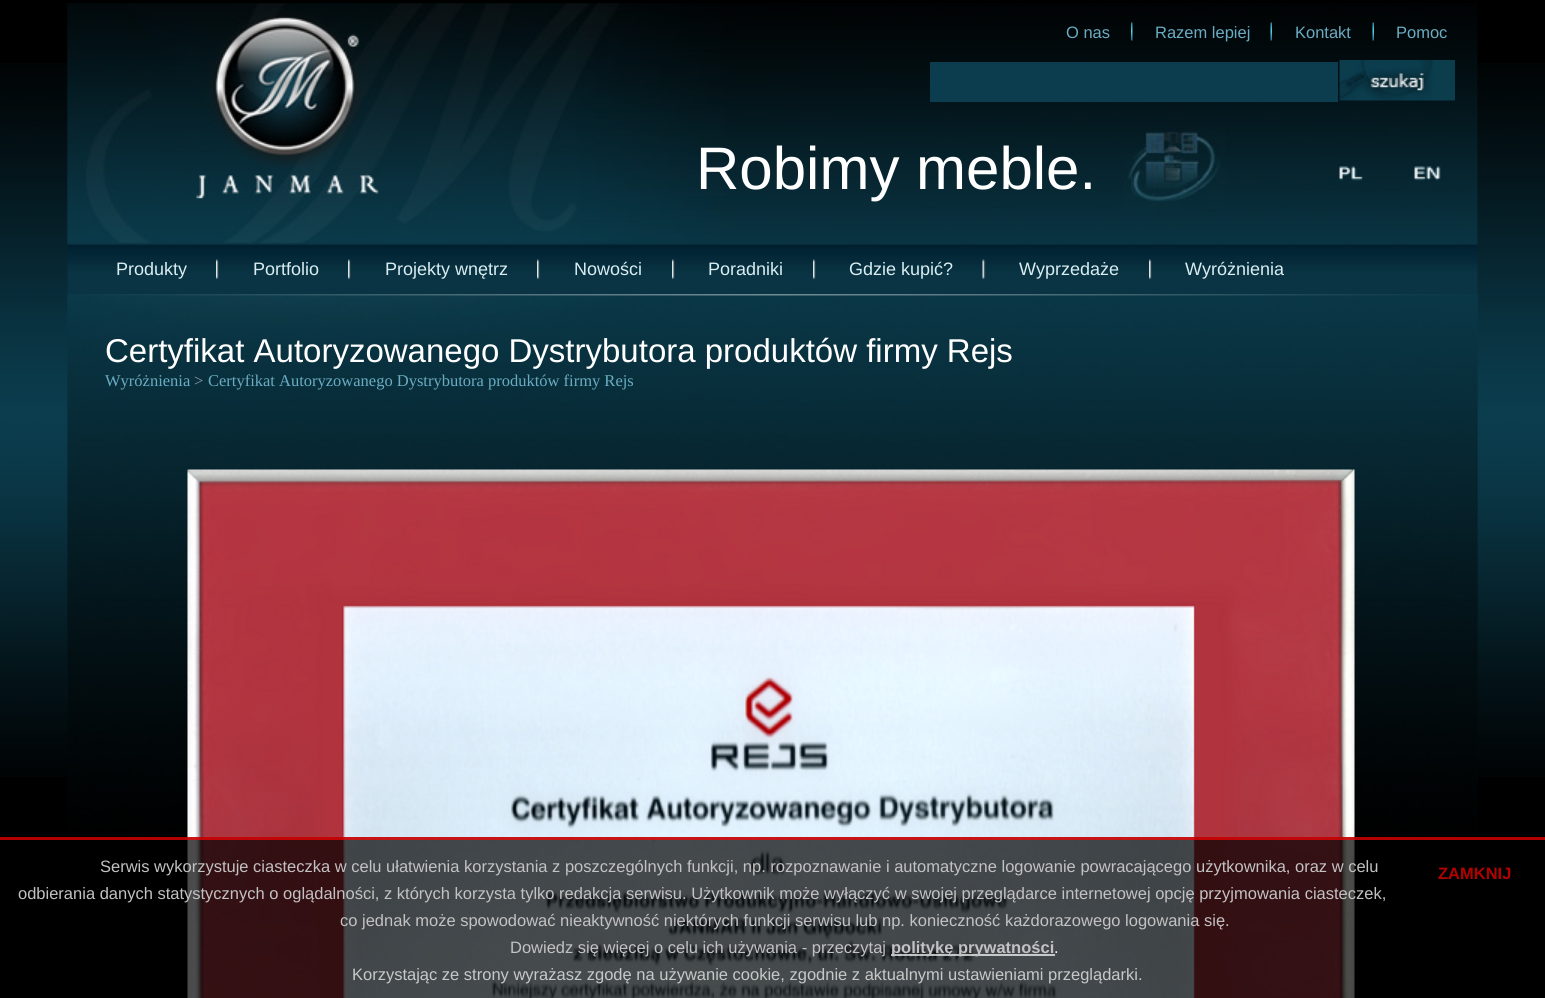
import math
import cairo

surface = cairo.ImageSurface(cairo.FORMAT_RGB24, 1545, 998)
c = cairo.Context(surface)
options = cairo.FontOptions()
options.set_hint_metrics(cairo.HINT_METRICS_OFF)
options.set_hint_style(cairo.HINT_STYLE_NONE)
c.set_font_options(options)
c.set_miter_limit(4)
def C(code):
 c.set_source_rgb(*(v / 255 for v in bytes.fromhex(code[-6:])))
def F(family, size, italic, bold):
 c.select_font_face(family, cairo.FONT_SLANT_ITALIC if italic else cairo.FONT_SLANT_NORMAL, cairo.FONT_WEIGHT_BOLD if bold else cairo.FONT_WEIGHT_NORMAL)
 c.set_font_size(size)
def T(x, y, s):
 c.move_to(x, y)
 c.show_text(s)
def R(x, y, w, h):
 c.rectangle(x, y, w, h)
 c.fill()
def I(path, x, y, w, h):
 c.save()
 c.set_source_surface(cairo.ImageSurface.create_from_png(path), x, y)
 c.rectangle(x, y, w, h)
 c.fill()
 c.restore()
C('000000')
c.paint()
I('1.png',0,63,1545,714)
I('2.png',67,3,1411,242)
I('3.png',67,3,528,242)
F('Liberation Sans',16.5,0,0)
C('6aadc3')
T(1066,38,'O nas')
I('4.png',1131,22,2,19)
T(1155,38,'Razem lepiej')
I('5.png',1270,22,2,19)
T(1295,38,'Kontakt')
I('6.png',1372,22,2,19)
T(1396,38,'Pomoc')
C('0b3d4e')
R(930,62,408,40)
I('7.png',1339,60,116,41)
F('Liberation Sans',60,0,0)
C('ffffff')
T(696,189,'Robimy meble.')
I('8.png',1339,166,24,15)
I('9.png',1414,166,27,15)
I('10.png',67,245,1411,49)
F('Liberation Sans',18,0,0)
C('d9edf2')
T(116,275,'Produkty')
I('11.png',216,259,3,20)
T(253,275,'Portfolio')
I('12.png',348,259,3,20)
T(385,275,'Projekty wnętrz')
I('11.png',537,259,3,20)
T(574,275,'Nowości')
I('11.png',672,259,3,20)
T(708,275,'Poradniki')
I('11.png',813,259,3,20)
T(849,275,'Gdzie kupić?')
I('13.png',982,259,4,20)
T(1019,275,'Wyprzedaże')
I('12.png',1149,259,3,20)
T(1185,275,'Wyróżnienia')
I('14.png',67,294,1411,587)
I('15.png',67,294,1411,587)
F('Liberation Sans',33,0,0)
C('ffffff')
T(105,362,'Certyfikat Autoryzowanego Dystrybutora produktów firmy Rejs')
F('Liberation Serif',16.5,0,0)
C('6aadc3')
T(105,386,'Wyróżnienia')
C('8f9fa6')
T(194,386,'>')
C('6aadc3')
T(208,386,'Certyfikat Autoryzowanego Dystrybutora produktów firmy Rejs')
I('16.png',187,469,1168,529)
c.set_source_rgba(0,0,0,0.7)
R(187,837,1168,161)
c.set_source_rgba(1,0,0,0.7)
R(0,837,1545,3)
F('Liberation Sans',16.5,0,0)
C('c3c2c3')
T(100,872,'Serwis wykorzystuje ciasteczka w celu ułatwienia korzystania z poszczególnych funkcji, np. rozpoznawanie i automatyczne logowanie powracającego użytkownika, oraz w celu')
F('Liberation Sans',16.5,0,1)
C('b30000')
T(1438,879,'ZAMKNIJ')
F('Liberation Sans',16.5,0,0)
C('c3c2c3')
T(18,899,'odbierania danych statystycznych o oglądalności, z których korzysta tylko redakcja serwisu. Użytkownik może wyłączyć w swojej przeglądarce internetowej opcję przyjmowania ciasteczek,')
T(340,926,'co jednak może spowodować nieaktywność niektórych funkcji serwisu lub np. konieczność każdorazowego logowania się.')
T(510,953,'Dowiedz się więcej o celu ich używania - przeczytaj')
c.set_source_rgba(1,1,1,0.7)
R(891,954,164,2)
F('Liberation Sans',16.5,0,1)
C('c3c2c3')
T(891,953,'politykę prywatności')
F('Liberation Sans',16.5,0,0)
C('f5fbff')
T(1054,953,'.')
C('c7c9c9')
T(352,980,'Korzystając ze strony wyrażasz zgodę na używanie cookie, zgodnie z aktualnymi ustawieniami przeglądarki.')
surface.write_to_png('o.png')
